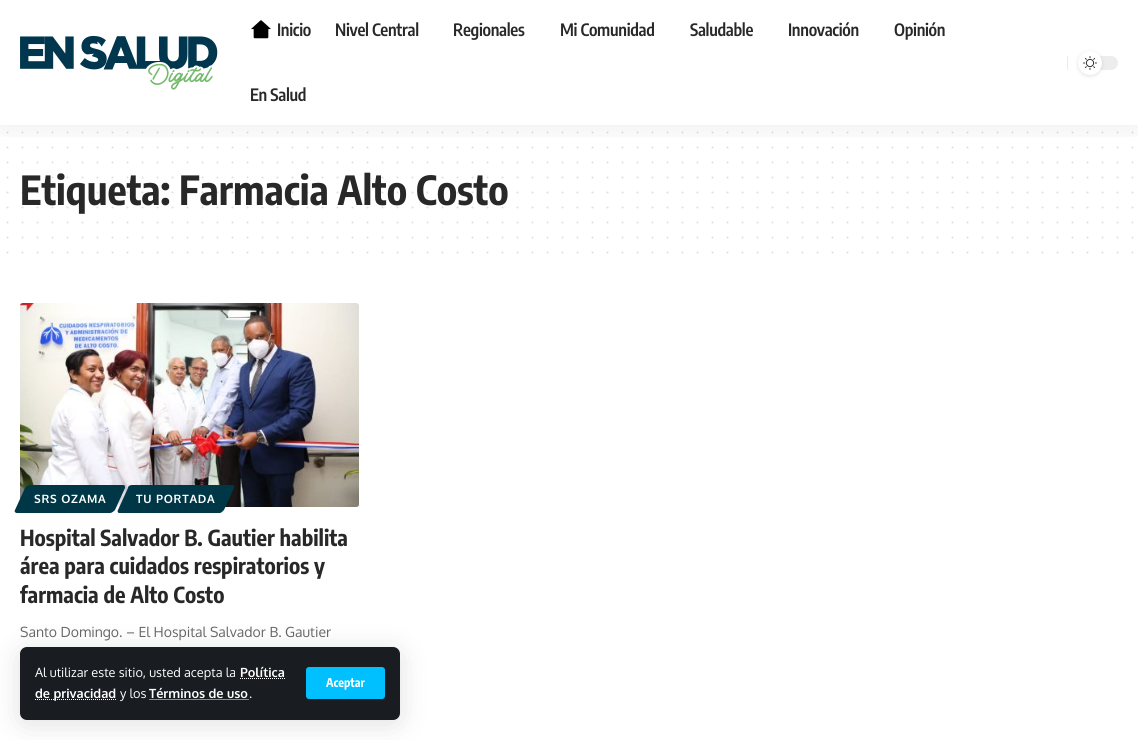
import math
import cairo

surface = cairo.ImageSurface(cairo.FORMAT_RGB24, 1138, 740)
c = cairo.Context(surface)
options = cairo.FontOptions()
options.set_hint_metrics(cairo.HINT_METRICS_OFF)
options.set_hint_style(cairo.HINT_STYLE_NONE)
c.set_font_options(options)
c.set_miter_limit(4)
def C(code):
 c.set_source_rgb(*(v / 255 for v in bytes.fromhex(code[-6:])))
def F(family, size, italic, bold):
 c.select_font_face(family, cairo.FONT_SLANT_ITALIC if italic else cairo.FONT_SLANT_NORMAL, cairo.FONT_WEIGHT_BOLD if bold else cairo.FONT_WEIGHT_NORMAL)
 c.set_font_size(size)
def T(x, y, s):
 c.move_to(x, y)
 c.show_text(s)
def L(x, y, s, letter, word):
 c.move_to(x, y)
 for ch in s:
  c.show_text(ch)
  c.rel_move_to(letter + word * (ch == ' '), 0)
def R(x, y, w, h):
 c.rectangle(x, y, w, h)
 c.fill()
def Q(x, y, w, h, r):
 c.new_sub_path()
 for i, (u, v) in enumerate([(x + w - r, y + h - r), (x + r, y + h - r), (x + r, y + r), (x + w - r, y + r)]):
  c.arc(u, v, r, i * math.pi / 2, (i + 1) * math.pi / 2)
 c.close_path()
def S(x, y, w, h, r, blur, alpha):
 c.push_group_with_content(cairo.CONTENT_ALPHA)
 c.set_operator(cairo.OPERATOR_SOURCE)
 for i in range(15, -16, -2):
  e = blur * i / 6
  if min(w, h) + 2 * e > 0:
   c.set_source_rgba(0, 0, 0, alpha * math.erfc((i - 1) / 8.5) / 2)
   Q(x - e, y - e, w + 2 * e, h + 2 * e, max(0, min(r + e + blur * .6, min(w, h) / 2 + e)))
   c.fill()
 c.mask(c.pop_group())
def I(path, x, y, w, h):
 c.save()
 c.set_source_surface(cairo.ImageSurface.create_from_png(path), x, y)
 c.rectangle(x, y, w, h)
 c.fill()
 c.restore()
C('ffffff')
c.paint()
c.new_path()
c.move_to(7.5,132.5)
c.line_to(1132.7,132.5)
C('dfdfdf')
c.set_line_cap(cairo.LINE_CAP_ROUND)
c.set_dash([0,15])
c.stroke()
c.new_path()
c.move_to(7.5,147.5)
c.line_to(1132.7,147.5)
c.stroke()
c.new_path()
c.move_to(7.5,162.5)
c.line_to(1132.7,162.5)
c.stroke()
c.save()
c.rectangle(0,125,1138,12)
c.clip()
C('000000')
S(0,4,1138,125,0,15,.07)
c.restore()
I('1.png',20,35,198,55)
I('2.png',251,20,20,19)
F('Encode Sans Condensed SemiBold',17,0,0)
C('282828')
L(277,36,'Inicio',-.3,0)
L(335,36,'Nivel Central',-.3,0)
L(453,36,'Regionales',-.3,0)
L(560,36,'Mi Comunidad',-.3,0)
L(690,36,'Saludable',-.3,0)
L(788,36,'Innovación',-.3,0)
L(894,36,'Opinión',-.3,0)
L(250,101,'En Salud',-.3,0)
C('eaeaea')
R(1067,56,1,14)
C('ededed')
Q(1078,56,40,14,7)
c.fill()
C('000000')
S(1078,52,24,24,12,2,.12)
C('ffffff')
c.arc(1090,63,12,0,2 * math.pi)
c.fill()
I('3.png',1083,56,14,14)
C('000000')
S(20,651,380,73,7,15,.12)
C('191c20')
Q(20,647,380,73,7)
c.fill()
F('Oxygen',12.75,0,0)
C('ffffff')
T(35,677,'Al utilizar este sitio, usted acepta la')
F('Oxygen',12.75,0,1)
T(240,677,'Política')
c.new_path()
c.move_to(240,678.5)
c.line_to(285,678.5)
c.set_line_width(1)
c.set_line_cap(cairo.LINE_CAP_BUTT)
c.set_dash([1,1])
c.stroke()
c.new_path()
c.move_to(35,699.5)
c.line_to(116.5,699.5)
c.stroke()
T(35,698,'de privacidad')
F('Oxygen',12.75,0,0)
T(120,698,'y los')
F('Oxygen',12.75,0,1)
T(149,698,'Términos de uso')
c.new_path()
c.move_to(149.5,699.5)
c.line_to(248.5,699.5)
c.stroke()
F('Oxygen',12.75,0,0)
T(249,698,'.')
C('00c0ff')
Q(306,667,79,32,3)
c.fill()
F('Encode Sans Condensed',12,0,1)
C('ffffff')
T(326,687,'Aceptar')
F('Encode Sans Condensed',40,0,1)
C('282828')
T(20,205,'Etiqueta: Farmacia Alto Costo')
c.new_path()
c.move_to(7.5,177.5)
c.line_to(1132.7,177.5)
c.set_source_rgba(0.157,0.157,0.157,0.15)
c.set_line_width(2)
c.set_line_cap(cairo.LINE_CAP_ROUND)
c.set_dash([0,15])
c.stroke()
c.new_path()
c.move_to(7.5,192.5)
c.line_to(1132.7,192.5)
c.stroke()
c.new_path()
c.move_to(7.5,207.5)
c.line_to(1132.7,207.5)
c.stroke()
c.new_path()
c.move_to(7.5,222.5)
c.line_to(1132.7,222.5)
C('dfdfdf')
c.stroke()
c.new_path()
c.move_to(7.5,237.5)
c.line_to(1132.7,237.5)
c.stroke()
c.new_path()
c.move_to(7.5,252.5)
c.line_to(1132.7,252.5)
c.stroke()
I('4.png',20,303,339,204)
C('003747')
c.new_path()
c.move_to(29,485)
c.line_to(123,485)
c.curve_to(125,485,125,486,125,488)
c.line_to(115,510)
c.curve_to(114,511,112,513,110,513)
c.line_to(17,513)
c.curve_to(15,513,14,511,15,510)
c.line_to(25,488)
c.curve_to(26,486,28,485,29,485)
c.close_path()
c.fill()
F('Oxygen',11.5,0,1)
C('ffffff')
L(34,503,'SRS OZAMA',.75,0)
C('003747')
c.new_path()
c.move_to(132,485)
c.line_to(233,485)
c.curve_to(234,485,235,486,234,488)
c.line_to(224,510)
c.curve_to(223,511,221,513,220,513)
c.line_to(119,513)
c.curve_to(118,513,117,511,118,510)
c.line_to(128,488)
c.curve_to(128,486,130,485,132,485)
c.close_path()
c.fill()
C('ffffff')
L(136,503,'TU PORTADA',.75,0)
F('Encode Sans Condensed',22,0,1)
C('282828')
T(20,546,'Hospital Salvador B. Gautier habilita')
T(20,574,'área para cuidados respiratorios y')
T(20,603,'farmacia de Alto Costo')
F('Oxygen',14,0,0)
C('666666')
T(20,637,'Santo Domingo. – El Hospital Salvador B. Gautier')
surface.write_to_png('o.png')
